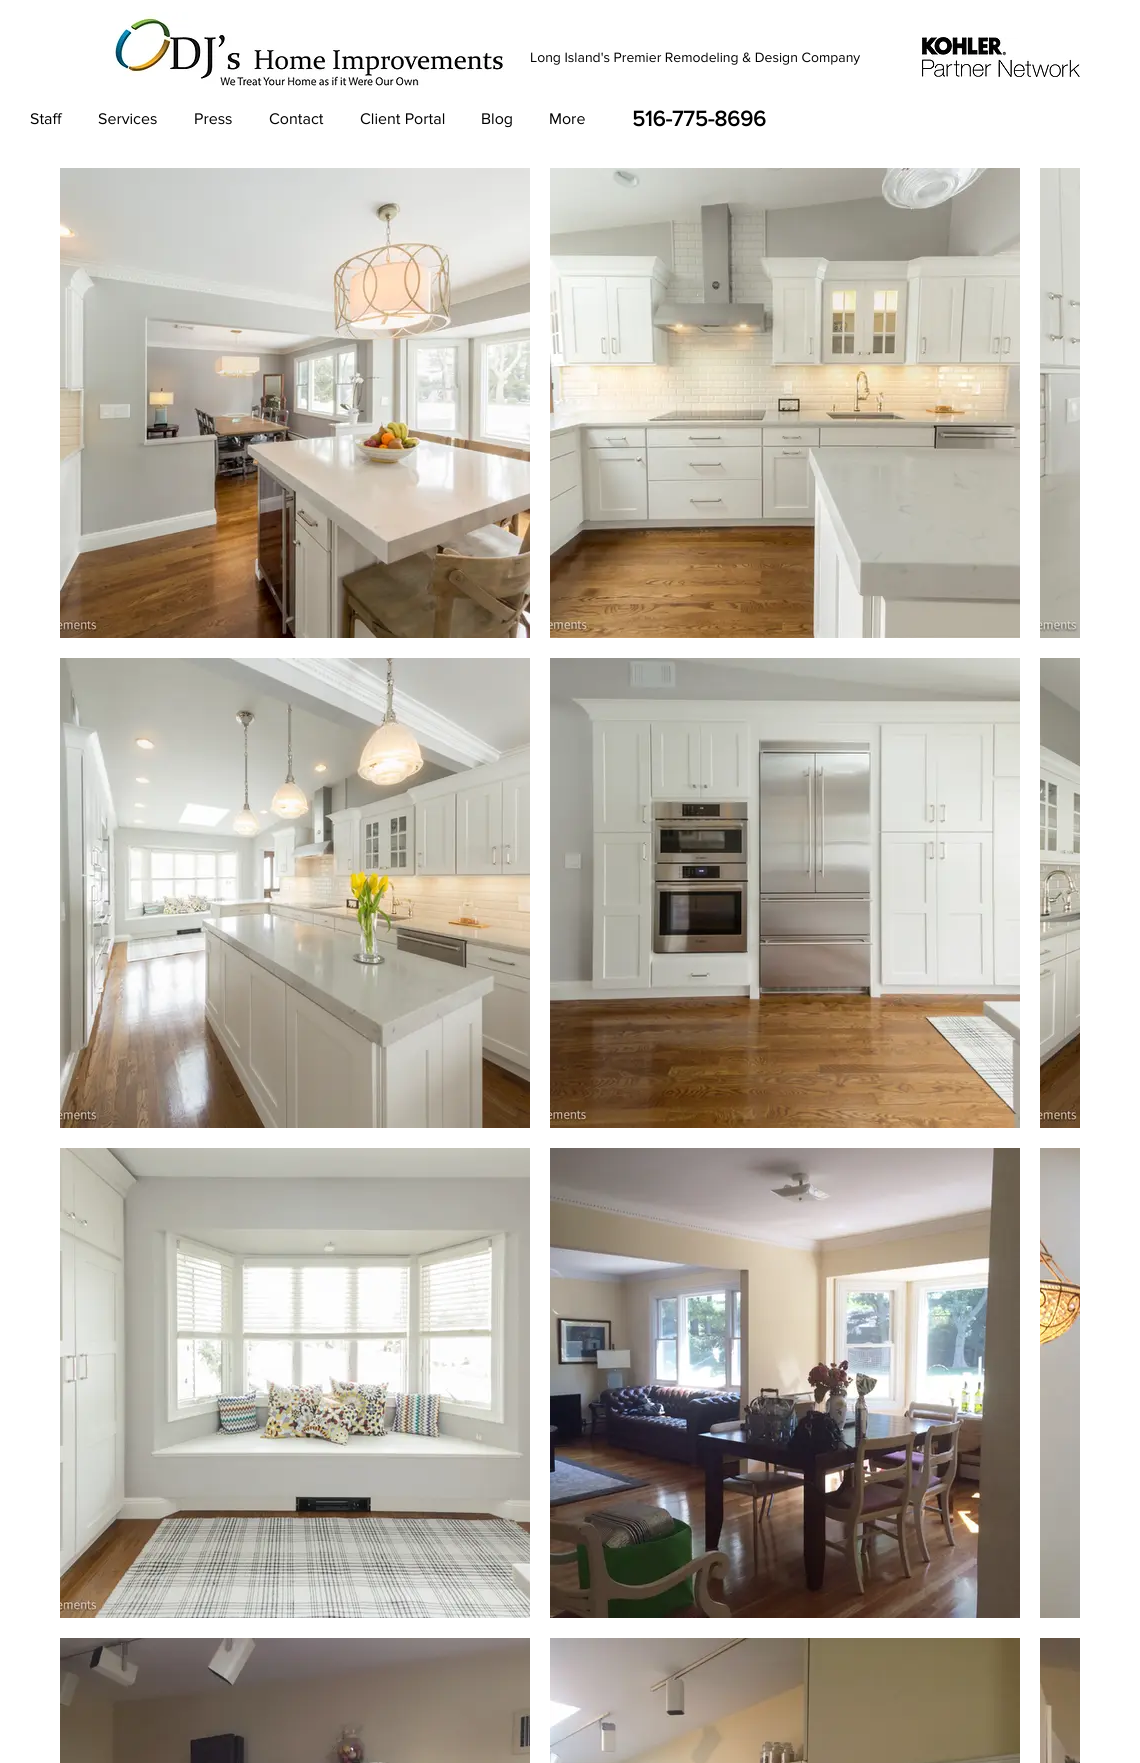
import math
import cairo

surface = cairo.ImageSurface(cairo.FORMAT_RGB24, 1140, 1763)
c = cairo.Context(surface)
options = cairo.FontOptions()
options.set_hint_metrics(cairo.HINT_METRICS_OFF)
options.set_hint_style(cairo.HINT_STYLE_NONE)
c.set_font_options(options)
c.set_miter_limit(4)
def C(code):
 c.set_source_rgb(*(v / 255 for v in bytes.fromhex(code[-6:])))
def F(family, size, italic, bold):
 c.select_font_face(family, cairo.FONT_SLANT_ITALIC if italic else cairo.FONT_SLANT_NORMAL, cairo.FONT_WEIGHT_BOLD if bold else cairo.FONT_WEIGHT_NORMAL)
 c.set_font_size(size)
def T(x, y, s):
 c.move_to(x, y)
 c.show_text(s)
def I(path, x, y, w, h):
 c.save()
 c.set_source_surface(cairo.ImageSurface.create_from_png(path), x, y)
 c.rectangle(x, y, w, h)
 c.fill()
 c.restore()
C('ffffff')
c.paint()
I('1.png',113,12,391,76)
F('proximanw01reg',14,0,0)
C('000000')
T(530,62,'Long Island\'s Premier Remodeling & Design Company')
I('2.png',922,37,158,40)
F('proximanw01reg',16,0,0)
T(30,124,'Staff')
T(98,124,'Services')
T(194,124,'Press')
T(269,124,'Contact')
T(360,124,'Client Portal')
T(481,124,'Blog')
T(549,124,'More')
F('proximanw01reg',22,0,1)
T(632,126,'516-775-8696')
I('3.png',60,168,470,470)
I('4.png',550,168,470,470)
I('5.png',1040,168,40,470)
I('6.png',60,658,470,470)
I('7.png',550,658,470,470)
I('8.png',1040,658,40,470)
I('9.png',60,1148,470,470)
I('10.png',550,1148,470,470)
I('11.png',1040,1148,40,470)
I('12.png',60,1638,470,125)
I('13.png',550,1638,470,125)
I('14.png',1040,1638,40,125)
surface.write_to_png('o.png')
